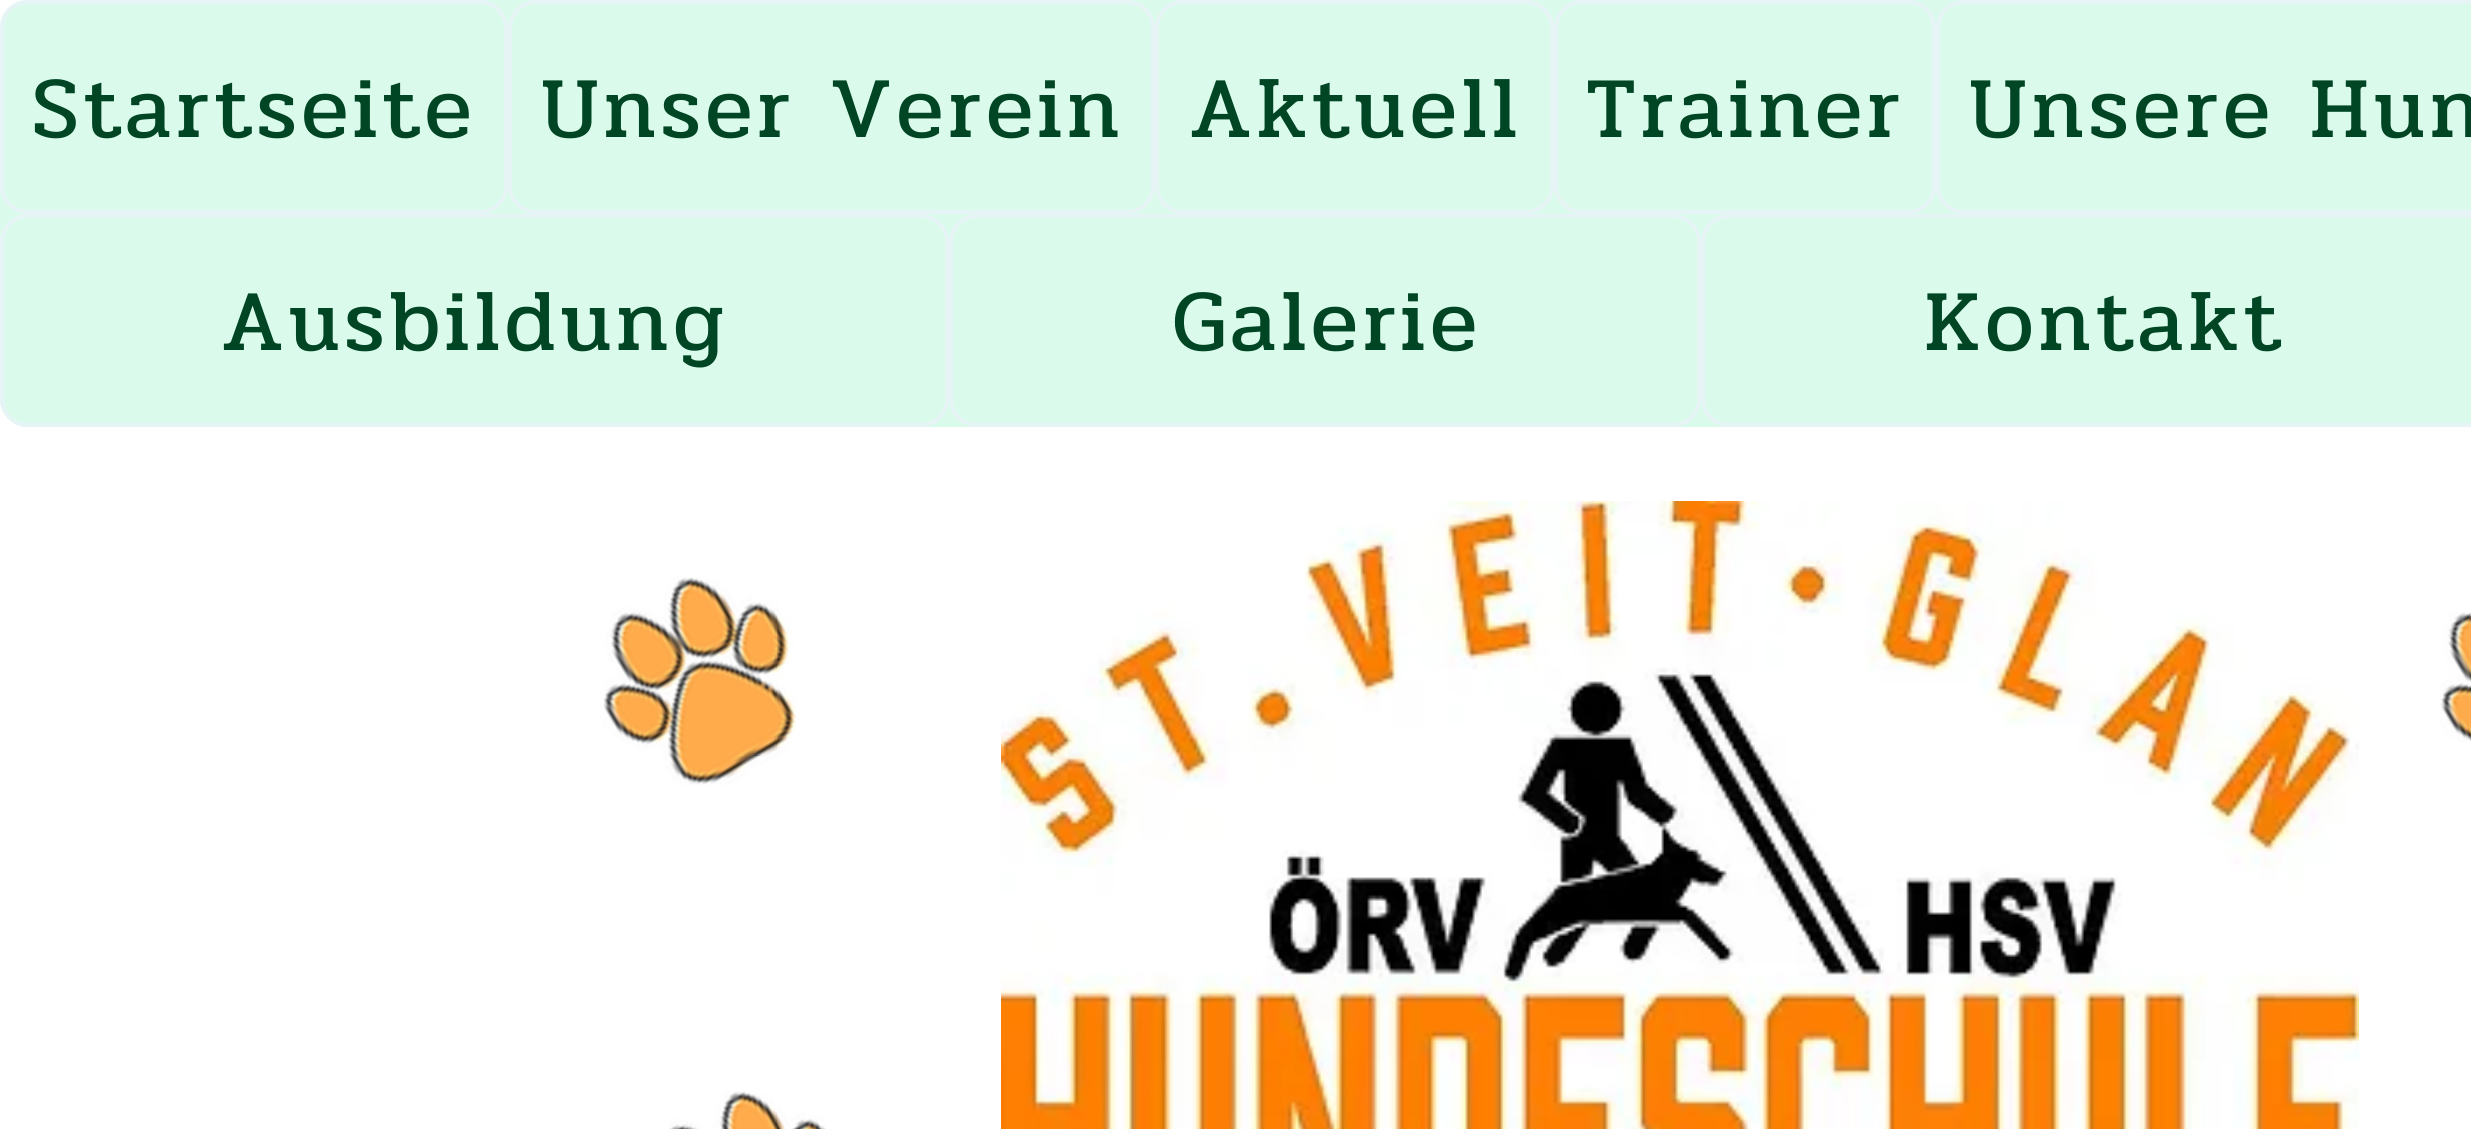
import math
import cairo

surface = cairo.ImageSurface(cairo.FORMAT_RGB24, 2471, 1129)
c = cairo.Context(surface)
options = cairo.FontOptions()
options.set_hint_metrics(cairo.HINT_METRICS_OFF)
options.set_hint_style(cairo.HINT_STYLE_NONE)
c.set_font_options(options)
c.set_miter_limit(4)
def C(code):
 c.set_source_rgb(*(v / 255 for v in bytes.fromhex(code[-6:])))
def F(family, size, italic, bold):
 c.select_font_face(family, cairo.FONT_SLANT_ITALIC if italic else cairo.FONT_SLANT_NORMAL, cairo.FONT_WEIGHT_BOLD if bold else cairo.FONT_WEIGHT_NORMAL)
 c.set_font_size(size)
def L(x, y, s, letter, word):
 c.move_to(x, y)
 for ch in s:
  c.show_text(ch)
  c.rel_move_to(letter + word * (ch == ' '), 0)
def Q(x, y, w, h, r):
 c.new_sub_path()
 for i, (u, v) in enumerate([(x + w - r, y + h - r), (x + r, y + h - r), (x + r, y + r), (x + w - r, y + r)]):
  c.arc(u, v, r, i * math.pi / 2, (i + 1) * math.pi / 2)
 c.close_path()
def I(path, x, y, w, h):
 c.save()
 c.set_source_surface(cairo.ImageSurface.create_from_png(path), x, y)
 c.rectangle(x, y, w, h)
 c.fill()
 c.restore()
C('ffffff')
c.paint()
C('dafbeb')
Q(0,0,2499,427,28)
c.fill()
Q(2,2,504,210,26)
C('e7f4f6')
c.set_line_width(4)
c.stroke()
F('Pridi',87.5,0,0)
C('004524')
L(32,137,'Startseite',4.4,0)
Q(510,2,643,210,26)
C('e7f4f6')
c.stroke()
C('004524')
L(541,137,'Unser Verein',4.4,0)
Q(1157,2,395,210,26)
C('e7f4f6')
c.stroke()
C('004524')
L(1189,137,'Aktuell',4.4,0)
Q(1556,2,378,210,26)
C('e7f4f6')
c.stroke()
C('004524')
L(1586,137,'Trainer',4.4,0)
Q(1938,2,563,210,26)
C('e7f4f6')
c.stroke()
C('004524')
L(1969,137,'Unsere Hun',4.4,0)
Q(2,216,945,209,26)
C('e7f4f6')
c.stroke()
C('004524')
L(221,350,'Ausbildung',4.4,0)
Q(951,216,748,209,26)
C('e7f4f6')
c.stroke()
C('004524')
L(1172,350,'Galerie',4.4,0)
Q(1703,216,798,209,26)
C('e7f4f6')
c.stroke()
C('004524')
L(1924,350,'Kontakt',4.4,0)
I('1.png',603,577,194,208)
I('2.png',1001,501,1358,628)
I('3.png',2440,612,31,130)
I('4.png',669,1091,157,38)
surface.write_to_png('o.png')
